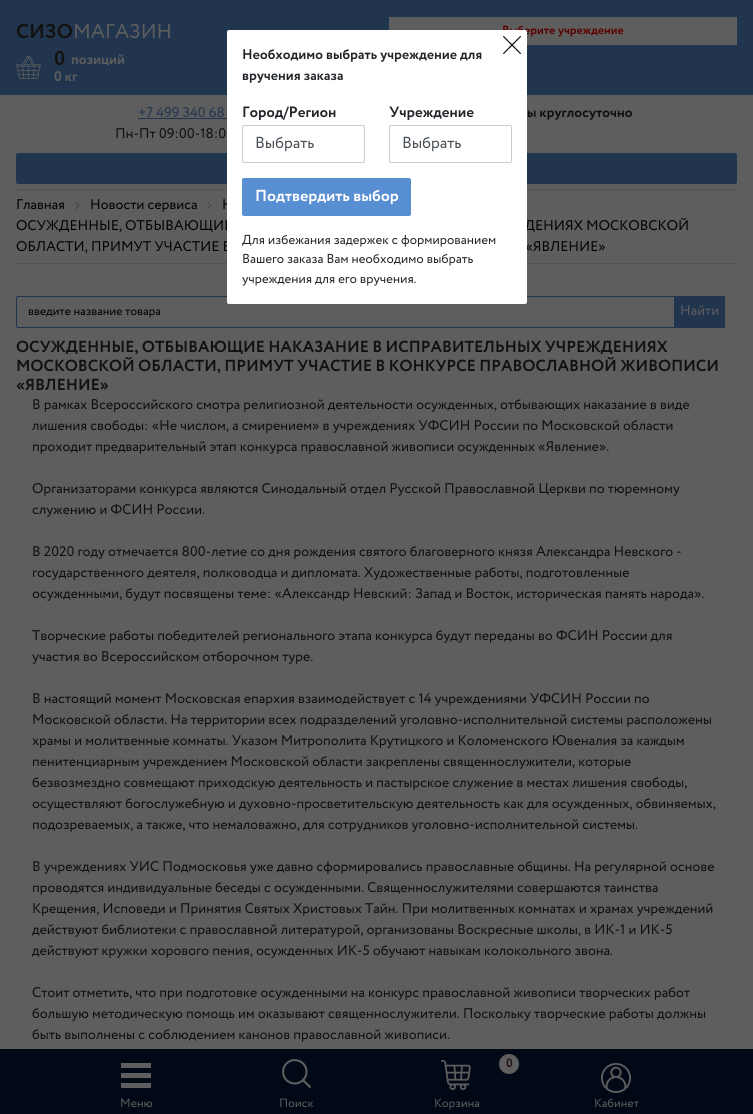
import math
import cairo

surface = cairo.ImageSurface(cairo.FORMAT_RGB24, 753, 1114)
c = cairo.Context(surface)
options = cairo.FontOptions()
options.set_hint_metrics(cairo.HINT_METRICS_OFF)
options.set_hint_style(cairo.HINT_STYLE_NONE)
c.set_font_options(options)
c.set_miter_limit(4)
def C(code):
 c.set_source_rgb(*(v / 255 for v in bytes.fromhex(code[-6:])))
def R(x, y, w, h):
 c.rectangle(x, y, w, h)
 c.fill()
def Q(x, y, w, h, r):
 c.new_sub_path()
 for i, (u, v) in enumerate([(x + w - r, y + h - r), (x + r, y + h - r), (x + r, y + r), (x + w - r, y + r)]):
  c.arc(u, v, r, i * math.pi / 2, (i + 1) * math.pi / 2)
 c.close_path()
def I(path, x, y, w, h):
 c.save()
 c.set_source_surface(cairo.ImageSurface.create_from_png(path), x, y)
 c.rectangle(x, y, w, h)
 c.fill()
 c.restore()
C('5e5e5e')
c.paint()
C('21354e')
R(0,0,753,95)
I('1.png',16,23,57,16)
I('2.png',75,23,95,16)
C('5e5e5e')
R(389,17,348,28)
I('3.png',503,25,121,12)
I('4.png',16,56,25,23)
I('5.png',54,50,11,16)
I('6.png',71,54,54,12)
I('7.png',54,71,24,11)
I('8.png',139,107,85,11)
C('21354e')
R(138,118,89,1)
I('9.png',116,128,111,11)
I('10.png',527,110,106,10)
Q(16.5,153.5,720,30,1.5)
c.fill_preserve()
c.set_line_width(1)
c.stroke()
C('4d535a')
R(16,189,721,1)
R(16,263,721,1)
I('25.png',16,217,672,15)
I('26.png',16,241,589,12)
Q(16.5,296.5,708,31,1.5)
C('21354e')
c.stroke()
C('ffffff')
Q(227,30,300,274,2)
c.fill()
I('11.png',503,36,18,18)
I('12.png',243,49,239,13)
I('13.png',242,73,101,10)
I('14.png',243,106,93,14)
Q(242.5,125.5,122,37,1.5)
C('cccccc')
c.stroke()
I('15.png',256,136,58,16)
I('16.png',389,106,85,14)
Q(389.5,125.5,122,37,1.5)
c.stroke()
I('15.png',403,136,58,16)
C('588ed2')
Q(242,178,169,38,2)
c.fill()
I('17.png',256,189,143,16)
I('18.png',242,234,254,13)
I('19.png',243,253,230,13)
I('20.png',242,277,174,9)
I('21.png',17,199,47,11)
I('22.png',75,201,5,9)
I('23.png',91,199,106,13)
I('22.png',207,201,5,9)
I('24.png',223,199,4,10)
I('27.png',28,309,133,9)
C('21354e')
R(674,296,51,32)
I('28.png',681,305,38,11)
I('29.png',16,340,652,15)
I('30.png',17,357,701,17)
I('31.png',16,378,93,13)
I('32.png',33,399,657,13)
I('33.png',32,420,641,13)
I('34.png',33,441,576,13)
I('35.png',32,483,648,13)
I('36.png',32,504,173,13)
I('37.png',33,546,648,13)
I('38.png',33,567,596,13)
I('39.png',32,588,672,13)
I('40.png',32,630,640,13)
I('41.png',32,651,281,13)
I('42.png',33,693,616,13)
I('43.png',33,714,678,13)
I('44.png',32,735,652,13)
I('45.png',33,756,598,13)
I('46.png',32,777,655,13)
I('47.png',32,798,684,13)
I('48.png',33,819,605,13)
I('49.png',33,861,681,13)
I('50.png',33,882,625,13)
I('51.png',33,903,680,13)
I('52.png',32,924,640,13)
I('53.png',32,945,581,13)
I('54.png',32,987,658,13)
I('55.png',32,1008,674,13)
I('56.png',32,1029,418,13)
C('020916')
R(0,1049,753,65)
C('5e5e5e')
R(121,1063,30,5)
R(121,1083,30,5)
R(121,1073,30,5)
I('57.png',121,1098,32,10)
I('58.png',282,1059,29,29)
I('59.png',280,1098,34,10)
I('60.png',441,1060,30,30)
c.arc(509,1064,10,0,2 * math.pi)
c.fill()
I('61.png',506,1058,7,10)
I('62.png',435,1098,45,12)
I('63.png',601,1063,30,30)
I('64.png',595,1098,44,10)
surface.write_to_png('o.png')
